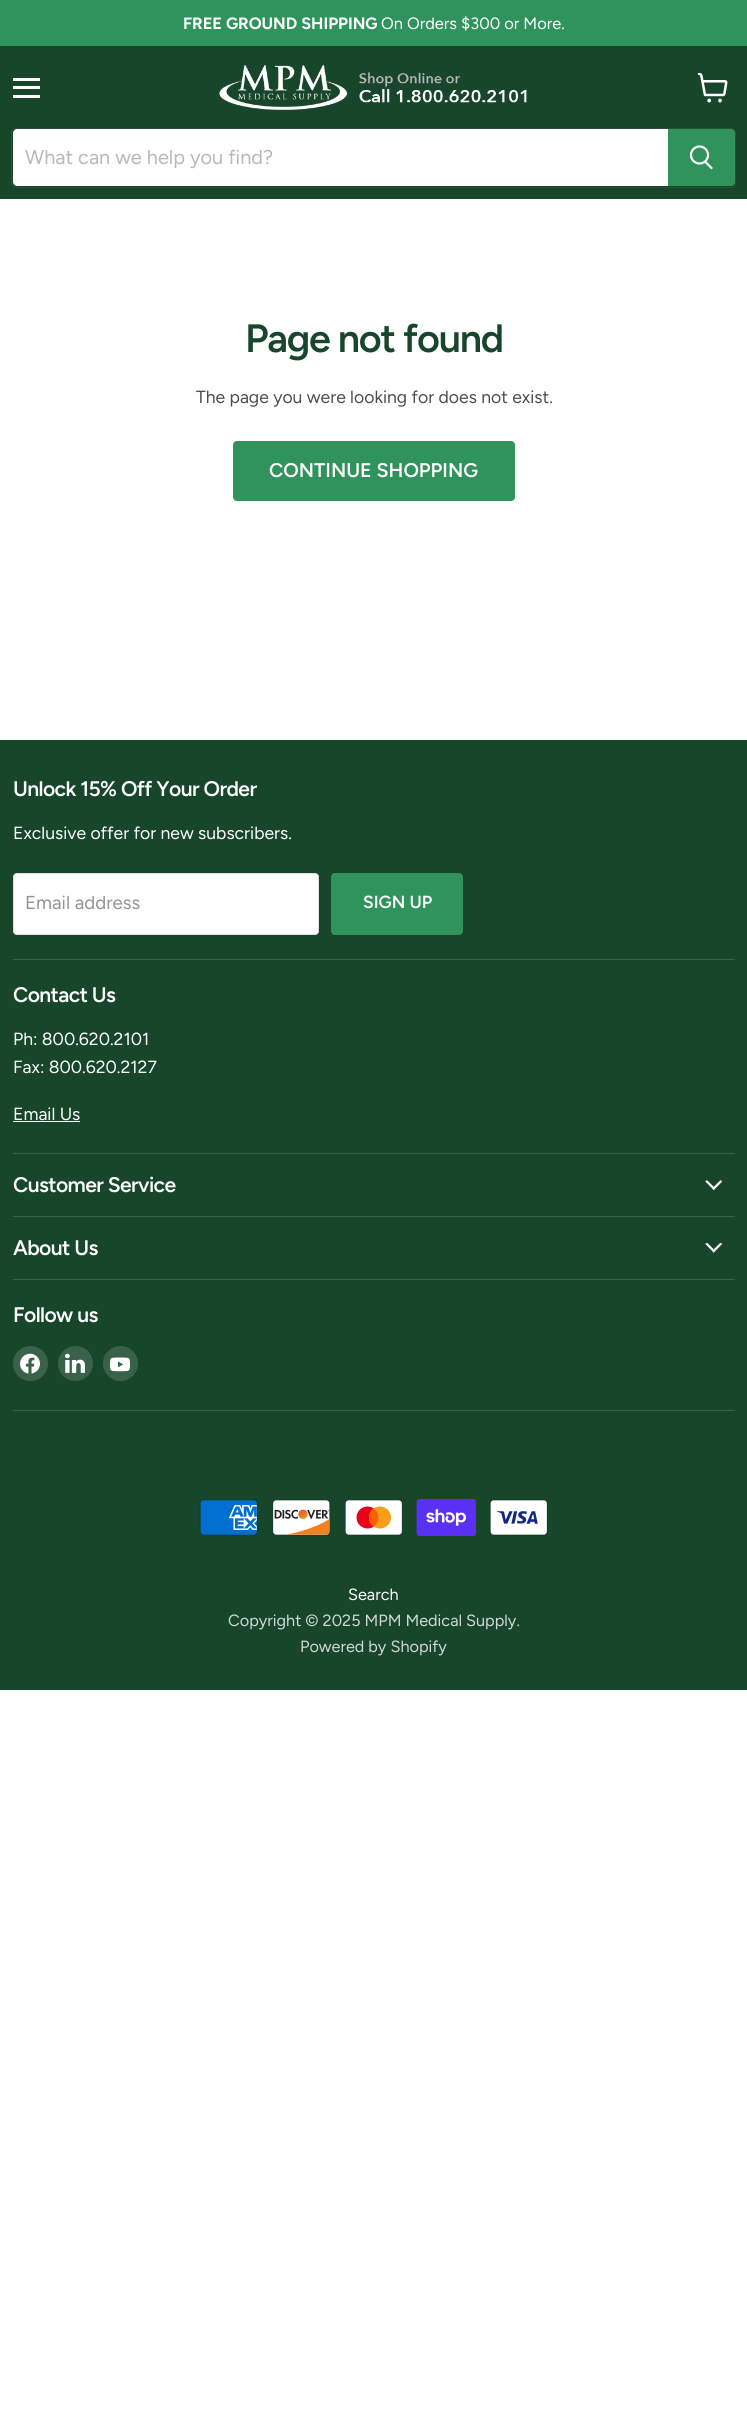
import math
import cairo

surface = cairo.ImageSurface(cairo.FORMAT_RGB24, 747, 2426)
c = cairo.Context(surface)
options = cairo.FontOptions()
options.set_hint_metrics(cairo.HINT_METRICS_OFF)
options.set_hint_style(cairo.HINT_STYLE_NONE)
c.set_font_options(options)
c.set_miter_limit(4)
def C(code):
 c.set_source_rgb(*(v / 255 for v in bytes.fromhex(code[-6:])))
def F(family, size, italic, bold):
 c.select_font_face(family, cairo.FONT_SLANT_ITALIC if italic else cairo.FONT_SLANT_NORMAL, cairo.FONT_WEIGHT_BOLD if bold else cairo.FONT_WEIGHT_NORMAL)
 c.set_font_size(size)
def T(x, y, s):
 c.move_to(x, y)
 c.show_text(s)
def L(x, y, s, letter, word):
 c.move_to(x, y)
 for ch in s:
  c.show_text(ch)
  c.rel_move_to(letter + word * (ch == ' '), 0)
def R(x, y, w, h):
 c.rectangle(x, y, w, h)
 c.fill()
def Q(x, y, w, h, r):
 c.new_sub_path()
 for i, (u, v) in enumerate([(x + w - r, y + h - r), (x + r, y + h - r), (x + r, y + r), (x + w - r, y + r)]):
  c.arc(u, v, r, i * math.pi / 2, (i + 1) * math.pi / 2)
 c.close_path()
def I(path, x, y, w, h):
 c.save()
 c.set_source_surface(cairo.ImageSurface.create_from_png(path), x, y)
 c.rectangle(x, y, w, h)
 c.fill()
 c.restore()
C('ffffff')
c.paint()
C('2f935b')
R(0,0,747,46)
F('Figtree',16.4,0,1)
C('ffffff')
T(183,29,'FREE GROUND SHIPPING')
F('Figtree',16.4,0,0)
T(381,29,'On Orders $300 or More.')
C('17462b')
R(0,46,747,153)
C('ffffff')
R(13,78,27,3)
R(13,86,27,3)
R(13,95,27,3)
I('1.png',698,73,30,30)
I('2.png',219,65,308,45)
Q(11.5,128.5,724,59,4.5)
c.set_source_rgba(0.502,0.502,0.502,0.2)
c.set_line_width(1)
c.stroke()
C('ffffff')
c.new_path()
c.move_to(17,129)
c.line_to(668,129)
c.line_to(668,186)
c.line_to(17,186)
c.curve_to(15,186,13,184,13,182)
c.line_to(13,133)
c.curve_to(13,131,15,129,17,129)
c.close_path()
c.fill()
F('Figtree',20,0,0)
C('b8b8b8')
T(25,164,'What can we help you find?')
C('2f935b')
c.new_path()
c.move_to(668.5,129.5)
c.line_to(731,129.5)
c.curve_to(733,129.5,734.5,131,734.5,133)
c.line_to(734.5,182)
c.curve_to(734.5,184,733,185.5,731,185.5)
c.line_to(668.5,185.5)
c.close_path()
c.fill_preserve()
c.stroke()
c.new_path()
c.move_to(711.5,168)
c.line_to(705.5,162)
C('ffffff')
c.set_line_width(2.2)
c.set_line_cap(cairo.LINE_CAP_ROUND)
c.stroke()
c.arc(699.5,155,8.5,0,2 * math.pi)
c.set_line_cap(cairo.LINE_CAP_BUTT)
c.stroke()
F('Figtree SemiBold',39.5,0,0)
C('17462b')
L(245,352,'Page not found',-1.25,0)
F('Figtree',17.6,0,0)
C('4d4d4d')
T(196,403,'The page you were looking for does not exist.')
C('2f935b')
Q(233.5,441.5,281,59,3.5)
c.fill_preserve()
c.set_line_width(1)
c.stroke()
F('Figtree SemiBold',19.75,0,0)
C('ffffff')
T(269,477,'CONTINUE SHOPPING')
C('17462b')
R(0,740,747,950)
C('3a624b')
R(13,959,722,1)
F('Figtree SemiBold',21.1,0,0)
C('ffffff')
L(13,796,'Unlock 15% Off Your Order',-.6,0)
F('Figtree',17.6,0,0)
T(13,839,'Exclusive offer for new subscribers.')
Q(13.5,873.5,305,61,3.5)
c.fill_preserve()
C('dddddd')
c.stroke()
F('Figtree',18.75,0,0)
C('949494')
T(25,909,'Email address')
C('2f935b')
Q(331.5,873.5,131,61,3.5)
c.fill_preserve()
c.stroke()
F('Figtree SemiBold',17.5,0,0)
C('ffffff')
T(363,908,'SIGN UP')
C('3a624b')
R(13,1153,722,1)
F('Figtree SemiBold',21.1,0,0)
C('ffffff')
L(13,1002,'Contact Us',-.6,0)
F('Figtree',17.6,0,0)
T(13,1045,'Ph: 800.620.2101')
T(13,1073,'Fax: 800.620.2127')
T(13,1120,'Email Us')
R(13,1121,67,1)
C('3a624b')
R(13,1216,722,1)
F('Figtree SemiBold',21.1,0,0)
C('ffffff')
L(13,1192,'Customer Service',-.6,0)
I('3.png',705,1180,18,10)
C('3a624b')
R(13,1279,722,1)
C('ffffff')
L(13,1255,'About Us',-.6,0)
I('4.png',705,1243,18,10)
C('3a624b')
R(13,1410,722,1)
C('ffffff')
L(13,1322,'Follow us',-.6,0)
C('3a624b')
c.new_path()
c.arc(30.5,1363.5,17.5,0,2 * math.pi)
c.fill()
I('5.png',20,1353,20,21)
c.arc(75.5,1363.5,17.5,0,2 * math.pi)
c.fill()
I('6.png',65,1353,20,20)
c.arc(120.5,1363.5,17.5,0,2 * math.pi)
c.fill()
I('7.png',110,1357,20,15)
I('8.png',199,1499,59,37)
I('9.png',272,1499,59,37)
I('10.png',344,1499,59,37)
I('11.png',416,1499,60,37)
I('12.png',489,1499,59,37)
F('Figtree',16.25,0,0)
C('ffffff')
T(348,1600,'Search')
C('d1dad5')
T(228,1626,'Copyright © 2025 MPM Medical Supply.')
T(300,1652,'Powered by Shopify')
surface.write_to_png('o.png')
